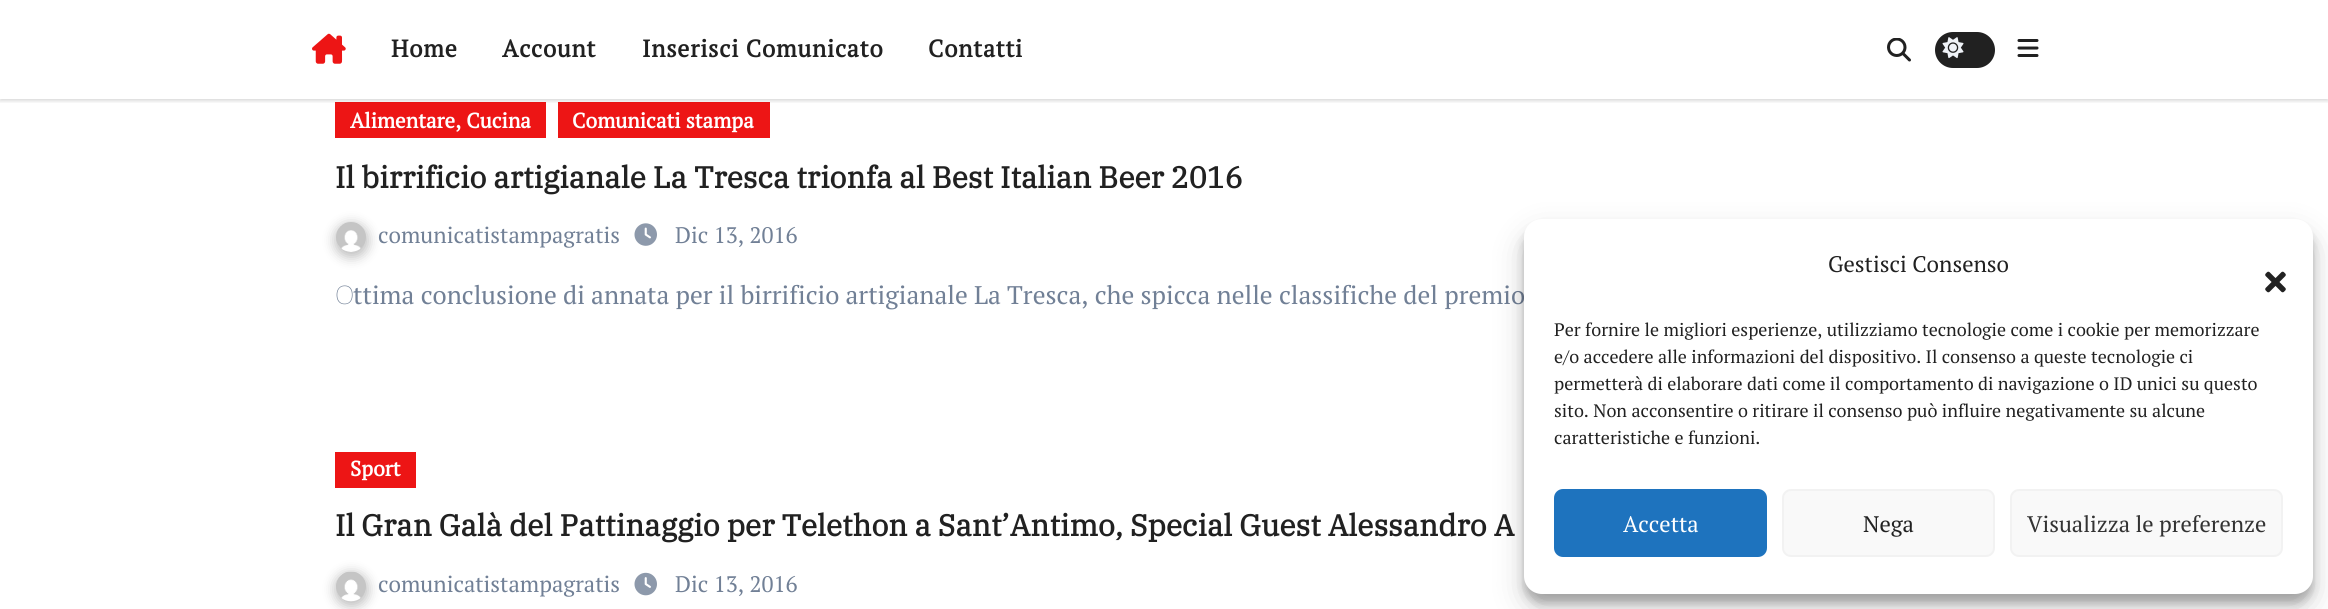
import math
import cairo

surface = cairo.ImageSurface(cairo.FORMAT_RGB24, 2328, 609)
c = cairo.Context(surface)
options = cairo.FontOptions()
options.set_hint_metrics(cairo.HINT_METRICS_OFF)
options.set_hint_style(cairo.HINT_STYLE_NONE)
c.set_font_options(options)
c.set_miter_limit(4)
def C(code):
 c.set_source_rgb(*(v / 255 for v in bytes.fromhex(code[-6:])))
def F(family, size, italic, bold):
 c.select_font_face(family, cairo.FONT_SLANT_ITALIC if italic else cairo.FONT_SLANT_NORMAL, cairo.FONT_WEIGHT_BOLD if bold else cairo.FONT_WEIGHT_NORMAL)
 c.set_font_size(size)
def T(x, y, s):
 c.move_to(x, y)
 c.show_text(s)
def L(x, y, s, letter, word):
 c.move_to(x, y)
 for ch in s:
  c.show_text(ch)
  c.rel_move_to(letter + word * (ch == ' '), 0)
def R(x, y, w, h):
 c.rectangle(x, y, w, h)
 c.fill()
def Q(x, y, w, h, r):
 c.new_sub_path()
 for i, (u, v) in enumerate([(x + w - r, y + h - r), (x + r, y + h - r), (x + r, y + r), (x + w - r, y + r)]):
  c.arc(u, v, r, i * math.pi / 2, (i + 1) * math.pi / 2)
 c.close_path()
def S(x, y, w, h, r, blur, alpha):
 c.push_group_with_content(cairo.CONTENT_ALPHA)
 c.set_operator(cairo.OPERATOR_SOURCE)
 for i in range(15, -16, -2):
  e = blur * i / 6
  if min(w, h) + 2 * e > 0:
   c.set_source_rgba(0, 0, 0, alpha * math.erfc((i - 1) / 8.5) / 2)
   Q(x - e, y - e, w + 2 * e, h + 2 * e, max(0, min(r + e + blur * .6, min(w, h) / 2 + e)))
   c.fill()
 c.mask(c.pop_group())
def I(path, x, y, w, h):
 c.save()
 c.set_source_surface(cairo.ImageSurface.create_from_png(path), x, y)
 c.rectangle(x, y, w, h)
 c.fill()
 c.restore()
C('ffffff')
c.paint()
C('ed1515')
R(335,102,211,36)
R(558,102,212,36)
c.save()
c.rectangle(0,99,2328,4)
c.clip()
C('000000')
S(0,2,2328,99,0,2,.15)
c.restore()
I('1.png',312,33,34,31)
F('PT Serif',24,0,1)
C('212121')
L(391,57,'Home',.75,0)
L(502,57,'Account',.75,0)
L(642,57,'Inserisci Comunicato',.75,0)
L(928,57,'Contatti',.75,0)
I('2.png',1887,38,24,24)
Q(1935,32,60,36,18)
c.fill()
I('3.png',1942,37,22,22)
I('4.png',2017,39,22,18)
F('PT Serif',21,0,1)
C('ffffff')
T(350,128,'Alimentare, Cucina')
T(572,128,'Comunicati stampa')
F('IBM Plex Serif',30,0,1)
C('212121')
T(335,188,'Il birrificio artigianale La Tresca trionfa al Best Italian Beer 2016')
C('212121')
S(335,224,33,33,16.5,6,.3)
I('5.png',336,222,30,30)
F('PT Serif',22.5,0,0)
C('718096')
T(378,243,'comunicatistampagratis')
I('6.png',634,223,23,23)
T(675,243,'Dic 13, 2016')
F('Noto Sans Thin',25.5,0,0)
T(335,304,'O')
F('PT Serif',25.5,0,0)
T(353,304,'ttima conclusione di annata per il birrificio artigianale La Tresca, che spicca nelle classifiche del premio')
C('ed1515')
R(335,452,81,36)
F('PT Serif',21,0,1)
C('ffffff')
T(350,476,'Sport')
F('IBM Plex Serif',30,0,1)
C('212121')
T(335,536,'Il Gran Galà del Pattinaggio per Telethon a Sant’Antimo, Special Guest Alessandro A')
C('212121')
S(335,573,33,33,16.5,6,.3)
I('7.png',336,571,30,31)
F('PT Serif',22.5,0,0)
C('718096')
T(378,592,'comunicatistampagratis')
I('8.png',634,572,23,24)
T(675,592,'Dic 13, 2016')
C('000000')
S(1524,228,789,375,18,4.5,.23)
S(1524,234,789,375,18,15,.19)
C('ffffff')
Q(1524,219,789,375,18)
c.fill()
C('212121')
T(1828,272,'Gestisci Consenso')
I('9.png',2265,271,21,22)
F('PT Serif',18,0,0)
T(1554,336,'Per fornire le migliori esperienze, utilizziamo tecnologie come i cookie per memorizzare')
T(1554,363,'e/o accedere alle informazioni del dispositivo. Il consenso a queste tecnologie ci')
T(1554,390,'permetterà di elaborare dati come il comportamento di navigazione o ID unici su questo')
T(1554,417,'sito. Non acconsentire o ritirare il consenso può influire negativamente su alcune')
T(1554,444,'caratteristiche e funzioni.')
C('1e73be')
Q(1555,490,211,66,8)
c.fill_preserve()
c.stroke()
F('PT Serif',22.5,0,0)
C('ffffff')
T(1623,532,'Accetta')
C('f9f9f9')
Q(1783,490,211,66,8)
c.fill_preserve()
C('f2f2f2')
c.stroke()
C('212121')
T(1863,532,'Nega')
C('f9f9f9')
Q(2011,490,271,66,8)
c.fill_preserve()
C('f2f2f2')
c.stroke()
C('333333')
T(2027,532,'Visualizza le preferenze')
surface.write_to_png('o.png')
